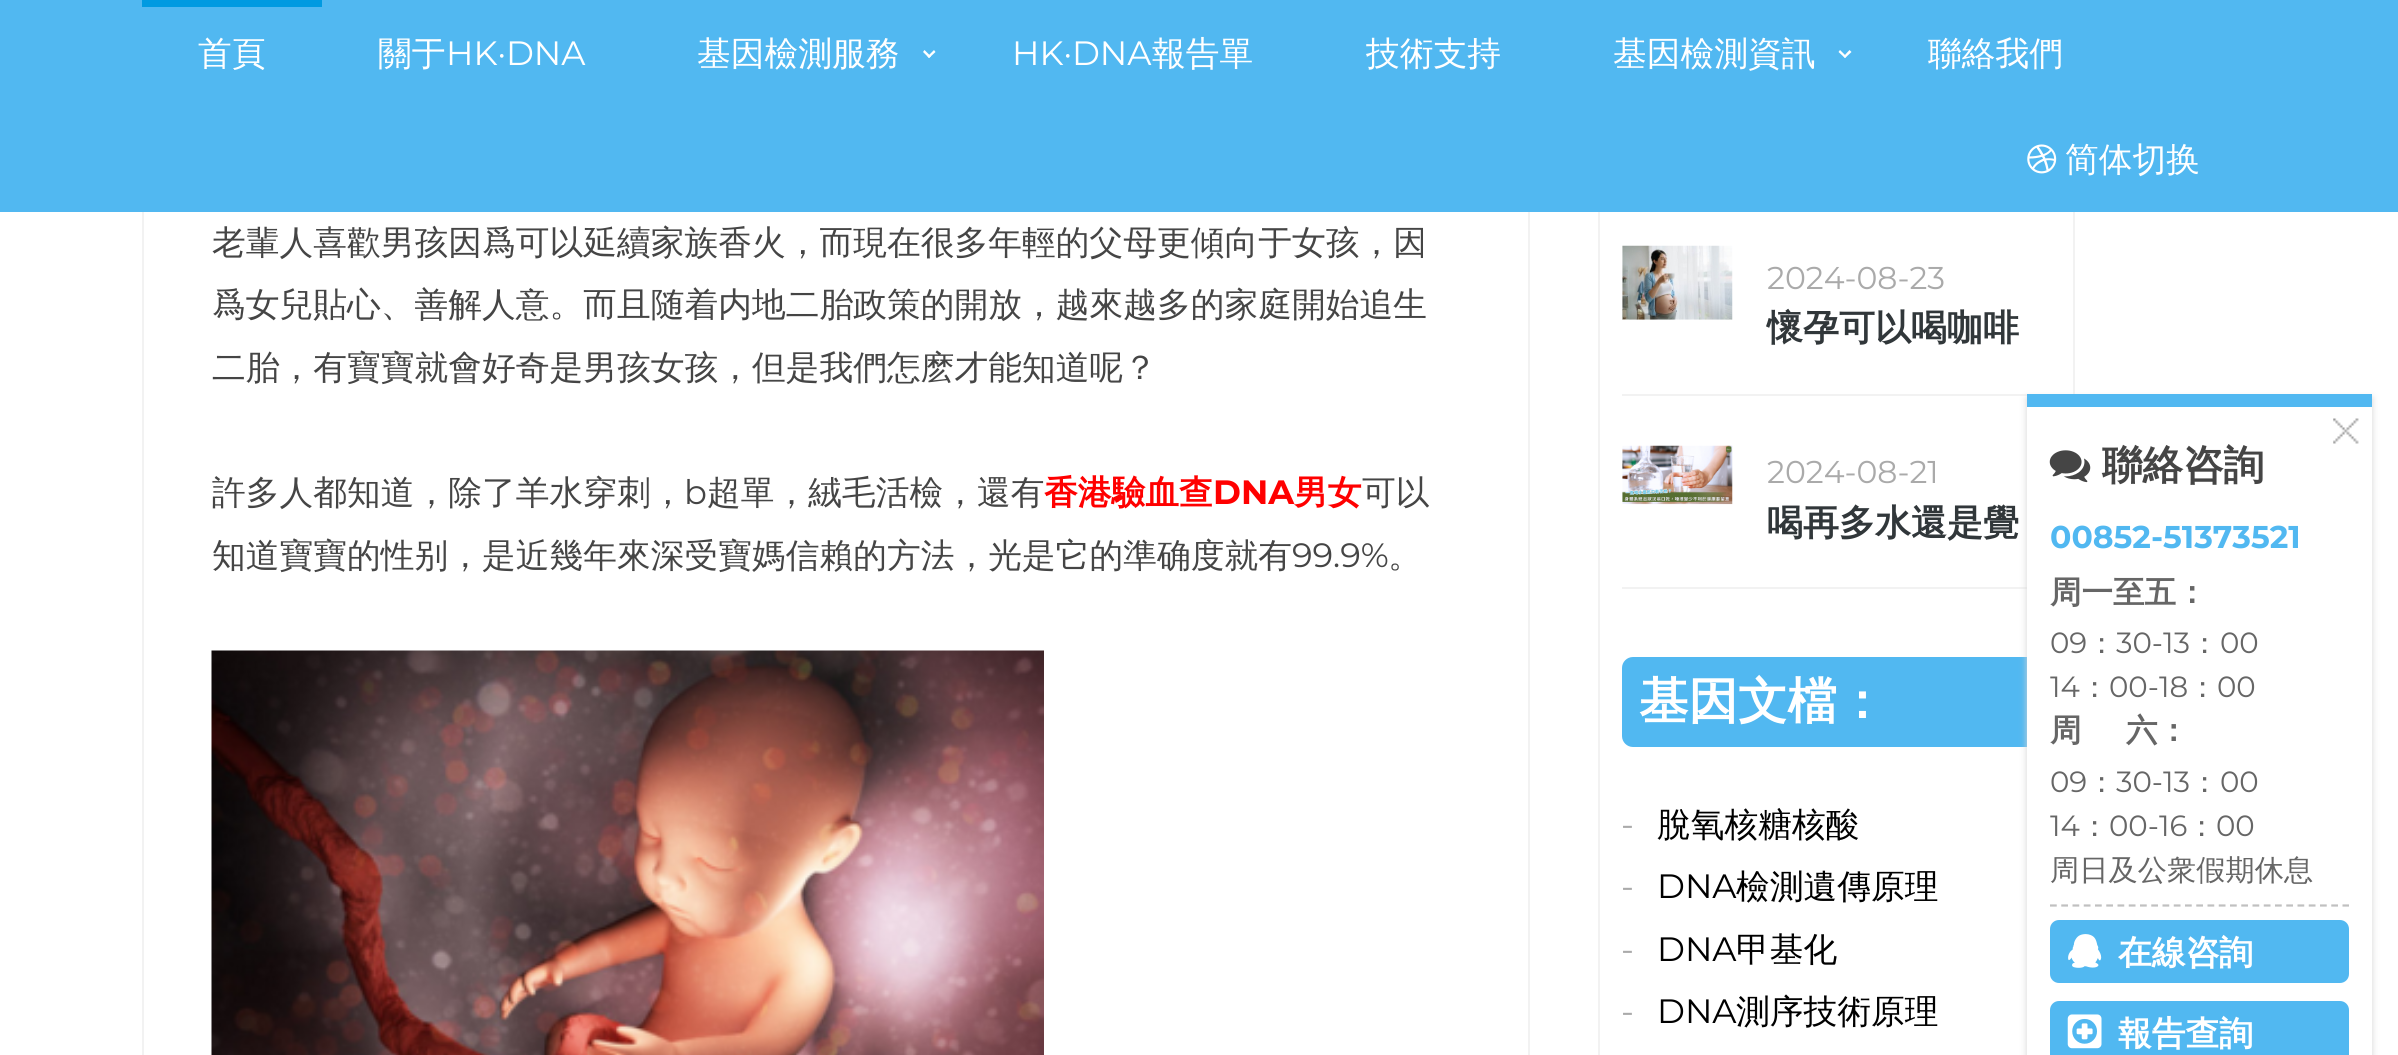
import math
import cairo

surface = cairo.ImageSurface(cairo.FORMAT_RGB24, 2398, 1055)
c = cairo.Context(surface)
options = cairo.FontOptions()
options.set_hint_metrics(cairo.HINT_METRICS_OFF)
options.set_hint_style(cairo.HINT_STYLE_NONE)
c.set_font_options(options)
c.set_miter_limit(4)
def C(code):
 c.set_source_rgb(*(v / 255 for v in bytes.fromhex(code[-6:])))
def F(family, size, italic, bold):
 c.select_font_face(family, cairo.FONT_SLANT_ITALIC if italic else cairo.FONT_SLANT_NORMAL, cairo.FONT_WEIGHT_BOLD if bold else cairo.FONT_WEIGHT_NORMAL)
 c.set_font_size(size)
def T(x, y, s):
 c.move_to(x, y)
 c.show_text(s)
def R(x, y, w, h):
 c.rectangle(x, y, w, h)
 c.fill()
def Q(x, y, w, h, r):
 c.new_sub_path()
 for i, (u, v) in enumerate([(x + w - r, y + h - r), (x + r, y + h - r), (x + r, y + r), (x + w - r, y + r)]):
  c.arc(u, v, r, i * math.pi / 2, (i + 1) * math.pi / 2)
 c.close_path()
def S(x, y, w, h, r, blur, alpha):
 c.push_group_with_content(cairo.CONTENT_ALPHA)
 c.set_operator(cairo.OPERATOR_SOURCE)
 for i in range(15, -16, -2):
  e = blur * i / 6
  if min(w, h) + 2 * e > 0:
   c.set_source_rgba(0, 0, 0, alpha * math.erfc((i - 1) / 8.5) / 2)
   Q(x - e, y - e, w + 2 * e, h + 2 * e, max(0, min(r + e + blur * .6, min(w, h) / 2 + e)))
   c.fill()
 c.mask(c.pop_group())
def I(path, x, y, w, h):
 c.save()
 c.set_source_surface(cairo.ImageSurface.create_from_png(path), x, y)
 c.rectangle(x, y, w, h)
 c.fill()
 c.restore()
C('ffffff')
c.paint()
c.rectangle(1599,-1,475,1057)
C('f2f2f2')
c.stroke()
C('51b8f1')
R(0,0,2398,212)
C('009ae1')
R(142,0,180,7)
F('WenQuanYi Zen Hei Medium',33.75,0,0)
C('ffffff')
T(198,65,'首頁')
T(378,65,'關于')
F('Montserrat',33.75,0,0)
T(446,65,'HK·DNA')
F('WenQuanYi Zen Hei Medium',33.75,0,0)
T(697,65,'基因檢測服務')
c.new_path()
c.move_to(934,50)
c.line_to(935.5,52)
c.line_to(929,58)
c.line_to(927.5,56.5)
c.close_path()
c.fill()
c.new_path()
c.move_to(924.5,50)
c.line_to(931,56.5)
c.line_to(929,58)
c.line_to(923,52)
c.close_path()
c.fill()
F('Montserrat',33.75,0,0)
T(1012,65,'HK·DNA')
F('WenQuanYi Zen Hei Medium',33.75,0,0)
T(1152,65,'報告單')
T(1366,65,'技術支持')
T(1613,65,'基因檢測資訊')
c.new_path()
c.move_to(1849.5,50)
c.line_to(1851.5,52)
c.line_to(1845,58)
c.line_to(1843.5,56.5)
c.close_path()
c.fill()
c.new_path()
c.move_to(1840,50)
c.line_to(1846.5,56.5)
c.line_to(1845,58)
c.line_to(1838.5,52)
c.close_path()
c.fill()
T(1928,65,'聯絡我們')
I('1.png',2027,144,30,30)
T(2065,171,'简体切换')
C('f2f2f2')
R(1528,212,2,843)
R(142,212,2,843)
C('454545')
T(212,254,'老輩人喜歡男孩因爲可以延續家族香火，而現在很多年輕的父母更傾向于女孩，因')
T(212,316,'爲女兒貼心、善解人意。而且随着内地二胎政策的開放，越來越多的家庭開始追生')
T(212,379,'二胎，有寶寶就會好奇是男孩女孩，但是我們怎麽才能知道呢？')
T(212,504,'許多人都知道，除了羊水穿刺，')
F('Montserrat',33.75,0,0)
T(684,504,'b')
F('WenQuanYi Zen Hei Medium',33.75,0,0)
T(707,504,'超單，絨毛活檢，還有')
F('WenQuanYi Zen Hei',33.75,0,1)
C('ff0000')
T(1044,504,'香港驗血查')
F('Montserrat',33.75,0,1)
T(1213,504,'DNA')
F('WenQuanYi Zen Hei',33.75,0,1)
T(1294,504,'男女')
F('WenQuanYi Zen Hei Medium',33.75,0,0)
C('454545')
T(1362,504,'可以')
T(212,567,'知道寶寶的性别，是近幾年來深受寶媽信賴的方法，光是它的準确度就有')
F('Montserrat',33.75,0,0)
T(1292,567,'99.9%')
F('WenQuanYi Zen Hei Medium',33.75,0,0)
T(1388,567,'。')
I('2.png',211,650,833,405)
C('f2f2f2')
R(1622,394,405,2)
I('3.png',1622,245,111,75)
F('Montserrat',31.5,0,0)
C('aaaaaa')
T(1767,289,'2024-08-23')
F('WenQuanYi Zen Hei',36,0,1)
C('31373a')
T(1767,340,'懷孕可以喝咖啡')
C('f2f2f2')
R(1622,587,405,2)
I('4.png',1622,445,111,60)
F('Montserrat',31.5,0,0)
C('aaaaaa')
T(1767,483,'2024-08-21')
F('WenQuanYi Zen Hei',36,0,1)
C('31373a')
T(1767,535,'喝再多水還是覺')
C('51b8f1')
Q(1622,657,428,90,11)
c.fill()
F('WenQuanYi Zen Hei',49.5,0,1)
C('ffffff')
T(1639,718,'基因文檔：')
F('Montserrat',33.75,0,0)
C('aaaaaa')
T(1621,836,'-')
F('WenQuanYi Zen Hei Medium',33.75,0,0)
C('000000')
T(1657,836,'脫氧核糖核酸')
F('Montserrat',33.75,0,0)
C('aaaaaa')
T(1621,898,'-')
C('000000')
T(1657,898,'DNA')
F('WenQuanYi Zen Hei Medium',33.75,0,0)
T(1736,898,'檢測遺傳原理')
F('Montserrat',33.75,0,0)
C('aaaaaa')
T(1621,961,'-')
C('000000')
T(1657,961,'DNA')
F('WenQuanYi Zen Hei Medium',33.75,0,0)
T(1736,961,'甲基化')
F('Montserrat',33.75,0,0)
C('aaaaaa')
T(1621,1023,'-')
C('000000')
T(1657,1023,'DNA')
F('WenQuanYi Zen Hei Medium',33.75,0,0)
T(1736,1023,'測序技術原理')
C('d4d4d4')
S(2027,398,345,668,0,3.5,1)
C('ffffff')
R(2027,407,345,648)
C('51b8f1')
R(2027,394,345,13)
I('5.png',2333,418,26,26)
I('6.png',2049,450,42,33)
F('WenQuanYi Zen Hei',40.5,0,1)
C('454545')
T(2102,479,'聯絡咨詢')
F('Montserrat',31.5,0,1)
C('51b8f1')
T(2050,548,'00852-51373521')
F('WenQuanYi Zen Hei',31.5,0,1)
C('666666')
T(2050,603,'周一至五：')
F('Montserrat',29.25,0,0)
T(2050,653,'09')
F('WenQuanYi Zen Hei Medium',29.25,0,0)
T(2087,653,'：')
F('Montserrat',29.25,0,0)
T(2116,653,'30-13')
F('WenQuanYi Zen Hei Medium',29.25,0,0)
T(2190,653,'：')
F('Montserrat',29.25,0,0)
T(2220,653,'00')
T(2050,697,'14')
F('WenQuanYi Zen Hei Medium',29.25,0,0)
T(2080,697,'：')
F('Montserrat',29.25,0,0)
T(2109,697,'00-18')
F('WenQuanYi Zen Hei Medium',29.25,0,0)
T(2188,697,'：')
F('Montserrat',29.25,0,0)
T(2217,697,'00')
F('WenQuanYi Zen Hei',31.5,0,1)
T(2050,741,'周')
T(2126,741,'六：')
F('Montserrat',29.25,0,0)
T(2050,792,'09')
F('WenQuanYi Zen Hei Medium',29.25,0,0)
T(2087,792,'：')
F('Montserrat',29.25,0,0)
T(2116,792,'30-13')
F('WenQuanYi Zen Hei Medium',29.25,0,0)
T(2190,792,'：')
F('Montserrat',29.25,0,0)
T(2220,792,'00')
T(2050,836,'14')
F('WenQuanYi Zen Hei Medium',29.25,0,0)
T(2080,836,'：')
F('Montserrat',29.25,0,0)
T(2109,836,'00-16')
F('WenQuanYi Zen Hei Medium',29.25,0,0)
T(2187,836,'：')
F('Montserrat',29.25,0,0)
T(2216,836,'00')
F('WenQuanYi Zen Hei Medium',29.25,0,0)
T(2050,880,'周日及公衆假期休息')
c.new_path()
c.move_to(2050,905.5)
c.line_to(2349,905.5)
C('c0c0c0')
c.set_line_width(2.2)
c.set_dash([6.75,4.5])
c.stroke()
C('51b8f1')
Q(2050,920,299,63,9)
c.fill()
I('7.png',2068,934,34,34)
F('WenQuanYi Zen Hei',33.75,0,1)
C('ffffff')
T(2118,964,'在線咨詢')
C('51b8f1')
Q(2050,1001,299,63,9)
c.fill()
I('8.png',2067,1014,35,35)
C('ffffff')
T(2118,1045,'報告查詢')
surface.write_to_png('o.png')
